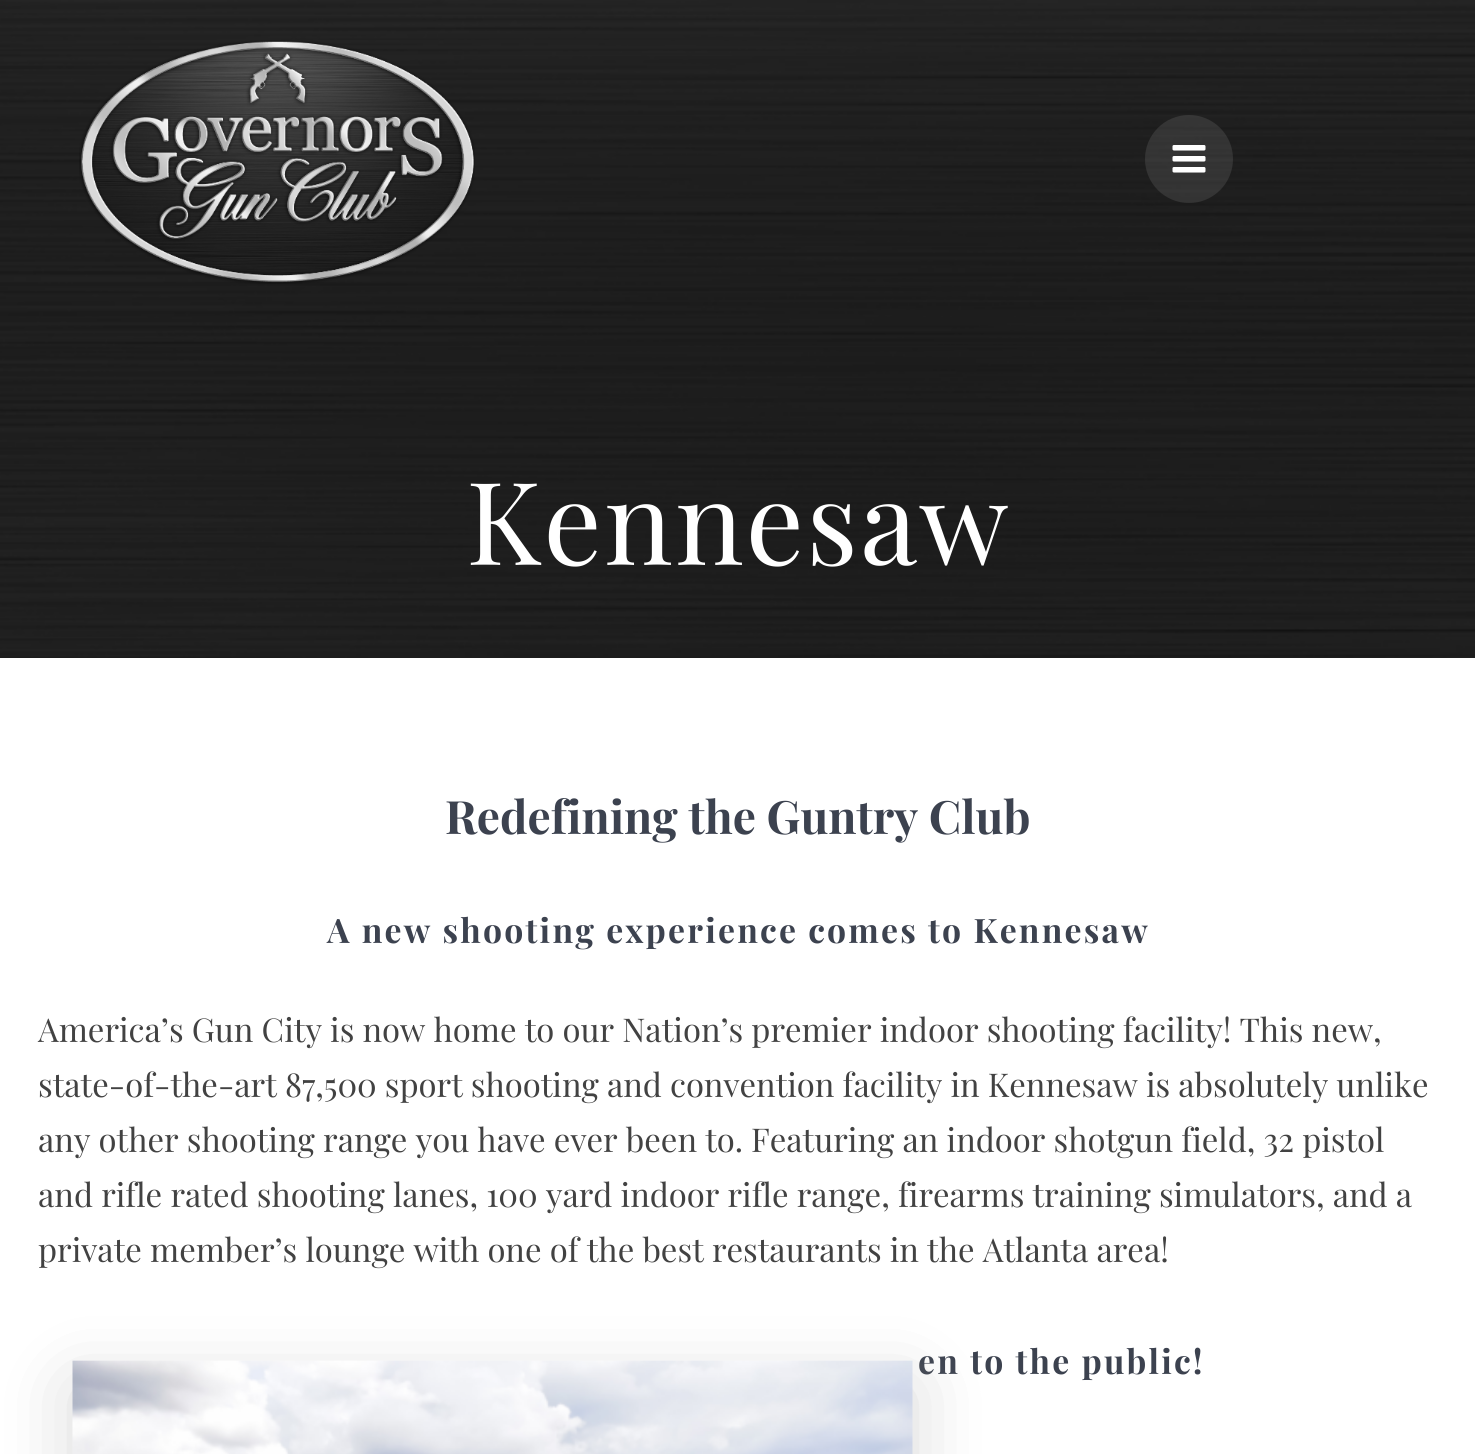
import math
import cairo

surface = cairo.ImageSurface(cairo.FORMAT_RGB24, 1475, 1454)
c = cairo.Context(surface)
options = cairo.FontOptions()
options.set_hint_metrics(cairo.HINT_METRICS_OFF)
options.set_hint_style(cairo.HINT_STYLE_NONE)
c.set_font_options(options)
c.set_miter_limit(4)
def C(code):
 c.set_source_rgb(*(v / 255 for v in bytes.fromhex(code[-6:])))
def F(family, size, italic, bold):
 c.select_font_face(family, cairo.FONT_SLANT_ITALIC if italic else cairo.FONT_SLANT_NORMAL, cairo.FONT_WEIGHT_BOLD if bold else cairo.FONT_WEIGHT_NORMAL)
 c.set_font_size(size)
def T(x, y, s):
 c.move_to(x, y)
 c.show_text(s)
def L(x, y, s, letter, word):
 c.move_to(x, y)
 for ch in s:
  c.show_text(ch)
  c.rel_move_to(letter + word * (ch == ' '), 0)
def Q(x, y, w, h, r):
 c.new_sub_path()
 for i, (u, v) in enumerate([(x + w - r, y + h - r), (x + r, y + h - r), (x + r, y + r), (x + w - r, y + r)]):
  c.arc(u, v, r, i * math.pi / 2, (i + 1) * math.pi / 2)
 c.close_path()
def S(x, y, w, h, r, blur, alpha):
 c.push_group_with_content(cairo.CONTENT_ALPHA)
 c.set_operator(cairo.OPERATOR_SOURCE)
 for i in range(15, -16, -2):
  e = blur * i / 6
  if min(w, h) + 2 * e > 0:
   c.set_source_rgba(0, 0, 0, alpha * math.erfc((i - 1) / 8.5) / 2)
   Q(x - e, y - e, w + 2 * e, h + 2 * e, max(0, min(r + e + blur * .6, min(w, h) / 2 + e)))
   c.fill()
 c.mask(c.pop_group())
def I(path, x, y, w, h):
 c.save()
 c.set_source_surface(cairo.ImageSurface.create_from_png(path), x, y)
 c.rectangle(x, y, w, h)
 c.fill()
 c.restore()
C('ffffff')
c.paint()
I('3.png',0,0,1475,658)
I('1.png',79,40,396,244)
c.set_source_rgba(1,1,1,0.1)
c.arc(1189,159,44,0,2 * math.pi)
c.fill()
I('2.png',1172,145,34,28)
F('Playfair Display',115,0,0)
C('ffffff')
L(466,565,'Kennesaw',2.25,0)
F('Playfair Display',46,0,1)
C('3c424f')
T(445,834,'Redefining the Guntry Club')
F('Playfair Display',33.7,0,1)
L(327,943,'A new shooting experience comes to Kennesaw',2.2,0)
F('Playfair Display',32.8,0,0)
C('424242')
T(38,1042,'America’s Gun City is now home to our Nation’s premier indoor shooting facility! This new,')
L(38,1097,'state-of-the-art 87,500 sport shooting and convention facility in Kennesaw is absolutely unlike',0,-.1)
T(38,1152,'any other shooting range you have ever been to.')
T(751,1152,'Featuring an indoor shotgun field, 32 pistol')
T(38,1207,'and rifle rated shooting lanes, 100 yard indoor rifle range, firearms training simulators, and a')
T(38,1262,'private member’s lounge with one of the best restaurants in the Atlanta area!')
F('Playfair Display',33.7,0,1)
C('3c424f')
L(918,1374,'en to the public!',2.2,0)
C('000000')
S(73,1385,840,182,0,37.5,.08)
C('bdbdbd')
S(73,1385,840,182,0,37.5,.3)
I('4.png',72,1360,841,94)
surface.write_to_png('o.png')
